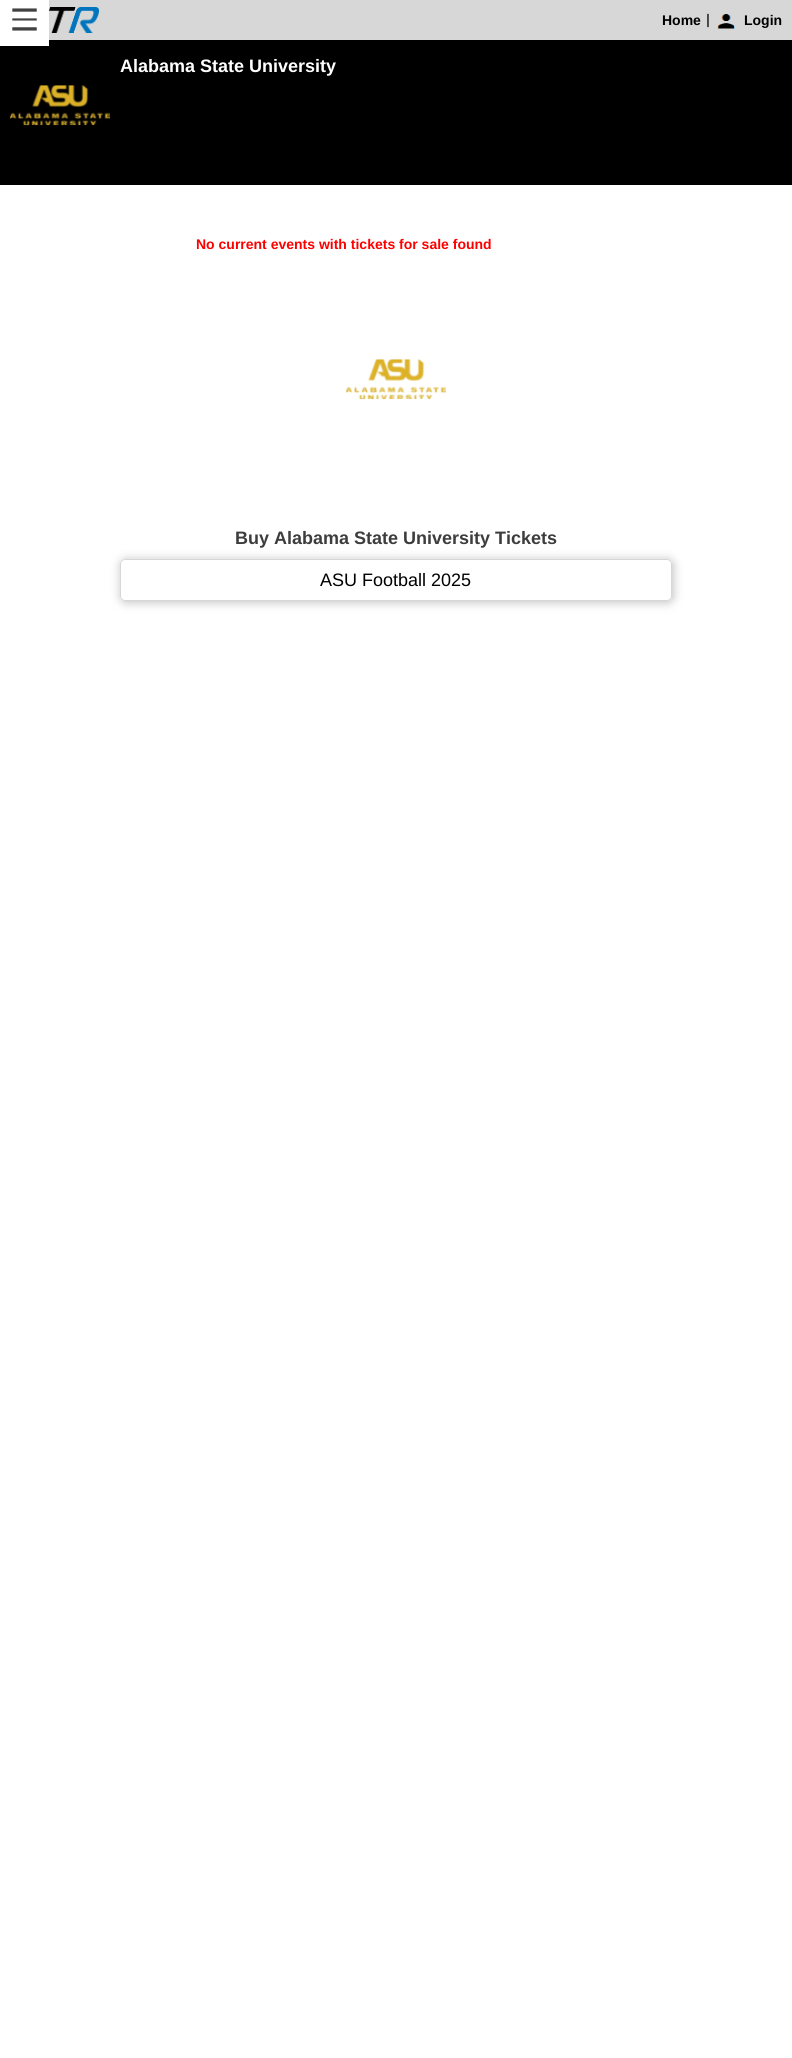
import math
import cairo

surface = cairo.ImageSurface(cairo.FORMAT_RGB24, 792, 2058)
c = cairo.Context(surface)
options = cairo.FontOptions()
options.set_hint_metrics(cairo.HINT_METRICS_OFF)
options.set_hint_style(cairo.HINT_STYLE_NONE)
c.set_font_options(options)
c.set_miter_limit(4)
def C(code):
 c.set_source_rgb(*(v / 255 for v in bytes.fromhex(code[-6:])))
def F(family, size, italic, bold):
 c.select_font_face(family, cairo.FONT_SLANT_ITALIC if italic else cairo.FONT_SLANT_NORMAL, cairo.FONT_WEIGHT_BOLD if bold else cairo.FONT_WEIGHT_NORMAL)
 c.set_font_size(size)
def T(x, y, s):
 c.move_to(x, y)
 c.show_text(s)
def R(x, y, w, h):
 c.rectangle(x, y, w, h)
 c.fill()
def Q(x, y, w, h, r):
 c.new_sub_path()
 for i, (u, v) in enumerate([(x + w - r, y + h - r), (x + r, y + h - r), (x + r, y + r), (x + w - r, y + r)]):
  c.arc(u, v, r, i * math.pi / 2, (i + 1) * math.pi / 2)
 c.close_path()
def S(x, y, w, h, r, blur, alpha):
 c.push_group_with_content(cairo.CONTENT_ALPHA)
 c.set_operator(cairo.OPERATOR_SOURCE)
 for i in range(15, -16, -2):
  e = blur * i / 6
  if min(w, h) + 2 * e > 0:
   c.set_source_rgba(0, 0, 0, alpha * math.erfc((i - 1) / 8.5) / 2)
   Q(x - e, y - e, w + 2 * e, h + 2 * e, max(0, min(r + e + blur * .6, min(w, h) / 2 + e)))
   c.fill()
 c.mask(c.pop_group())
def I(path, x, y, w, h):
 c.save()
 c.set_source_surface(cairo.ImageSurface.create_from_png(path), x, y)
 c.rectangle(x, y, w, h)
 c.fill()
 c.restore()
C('ffffff')
c.paint()
C('d7d7d7')
R(49,0,743,40)
C('000000')
R(0,40,792,145)
C('ffffff')
R(0,40,49,6)
I('1.png',12,8,25,23)
I('2.png',49,7,50,26)
F('Liberation Sans',14,0,1)
C('000000')
T(662,25,'Home')
C('3d3d3d')
T(706,24,'|')
I('3.png',717,14,18,15)
C('000000')
T(744,25,'Login')
F('Liberation Sans',18,0,1)
C('ffffff')
T(120,72,'Alabama State University')
I('4.png',10,85,100,41)
F('Liberation Sans',14,0,1)
C('ff0000')
T(196,249,'No current events with tickets for sale found')
I('5.png',346,359,100,41)
F('Liberation Sans',18,0,1)
C('3d3d3d')
T(235,544,'Buy Alabama State University Tickets')
c.save()
c.set_fill_rule(cairo.FILL_RULE_EVEN_ODD)
c.new_path()
c.move_to(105,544)
c.line_to(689,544)
c.line_to(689,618)
c.line_to(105,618)
c.close_path()
c.move_to(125,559)
c.line_to(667,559)
c.curve_to(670,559,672,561,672,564)
c.line_to(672,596)
c.curve_to(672,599,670,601,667,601)
c.line_to(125,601)
c.curve_to(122,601,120,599,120,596)
c.line_to(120,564)
c.curve_to(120,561,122,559,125,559)
c.close_path()
c.clip()
C('bdbdbd')
S(121,560,552,42,5,5,1)
c.restore()
Q(120.5,559.5,551,41,4.5)
C('d7d7d7')
c.set_line_width(1)
c.stroke()
F('Liberation Sans',18,0,0)
C('000000')
T(320,586,'ASU Football 2025')
surface.write_to_png('o.png')
